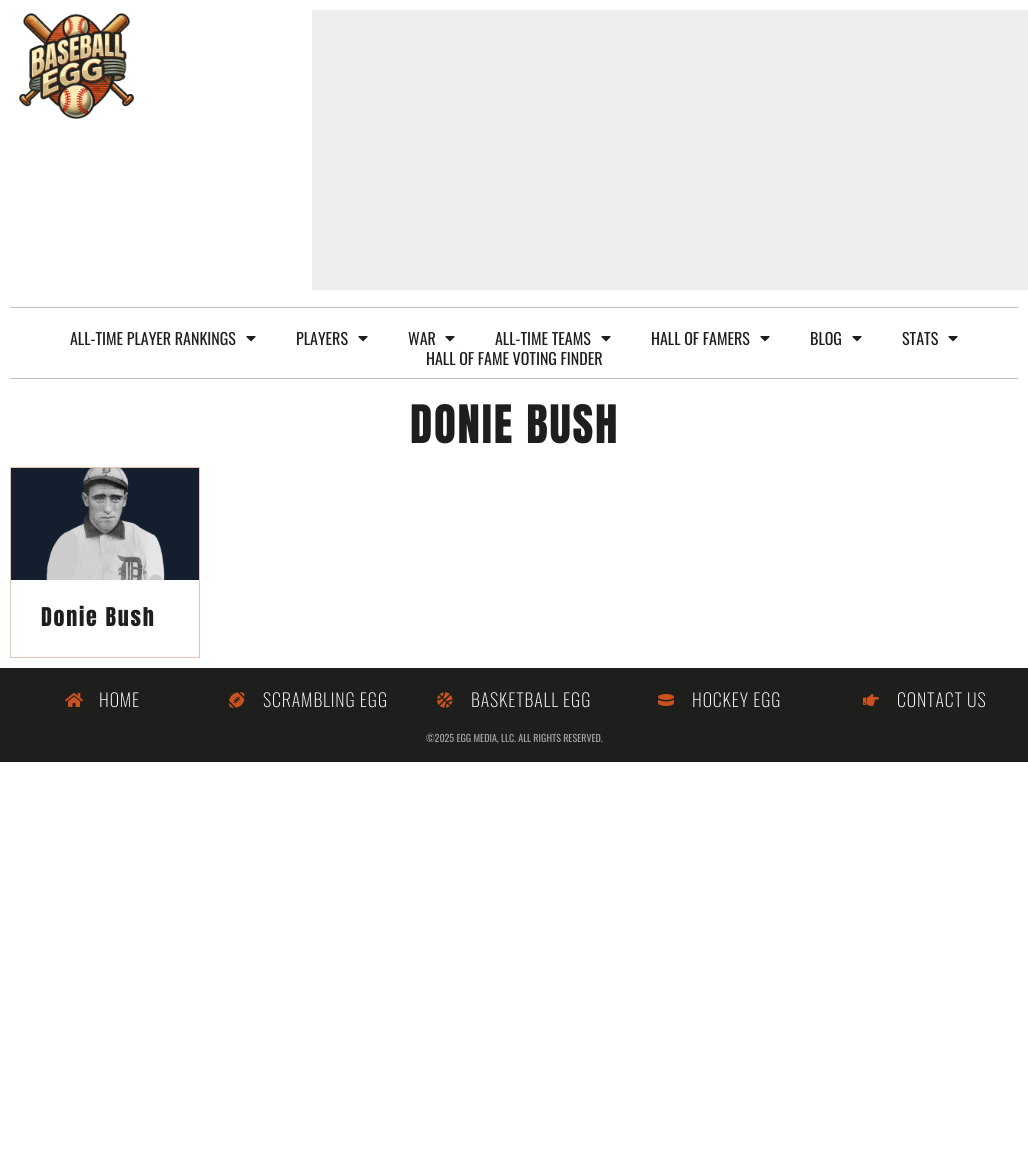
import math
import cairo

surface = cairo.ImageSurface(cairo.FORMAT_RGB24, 1028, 1169)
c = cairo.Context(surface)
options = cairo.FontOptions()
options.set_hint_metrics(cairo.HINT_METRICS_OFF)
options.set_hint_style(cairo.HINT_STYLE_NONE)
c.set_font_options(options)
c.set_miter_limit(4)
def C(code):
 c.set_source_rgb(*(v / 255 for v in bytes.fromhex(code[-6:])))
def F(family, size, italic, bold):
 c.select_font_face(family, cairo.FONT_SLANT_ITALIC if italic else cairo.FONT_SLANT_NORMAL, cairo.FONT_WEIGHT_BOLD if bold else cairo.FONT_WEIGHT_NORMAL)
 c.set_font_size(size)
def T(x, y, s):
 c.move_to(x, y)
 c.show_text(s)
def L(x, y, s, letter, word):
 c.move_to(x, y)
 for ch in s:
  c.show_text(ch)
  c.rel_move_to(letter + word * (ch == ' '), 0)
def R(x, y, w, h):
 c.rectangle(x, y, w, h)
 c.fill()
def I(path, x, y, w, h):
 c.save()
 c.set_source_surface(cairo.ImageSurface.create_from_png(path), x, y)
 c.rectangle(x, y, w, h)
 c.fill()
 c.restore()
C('ffffff')
c.paint()
I('1.png',19,13,115,106)
C('eeeeee')
R(312,10,716,280)
C('c0c0c0')
R(10,307,1008,1)
F('Oswald',16,0,0)
C('1e1f1d')
T(70,345,'ALL-TIME PLAYER RANKINGS')
I('2.png',246,336,10,6)
T(296,345,'PLAYERS')
I('2.png',358,336,10,6)
T(408,345,'WAR')
I('2.png',445,336,10,6)
T(495,345,'ALL-TIME TEAMS')
I('2.png',601,336,10,6)
T(651,345,'HALL OF FAMERS')
I('2.png',760,336,10,6)
T(810,345,'BLOG')
I('2.png',852,336,10,6)
T(902,345,'STATS')
I('2.png',948,336,10,6)
T(426,365,'HALL OF FAME VOTING FINDER')
C('c0c0c0')
R(10,378,1008,1)
F('Anton',45,0,0)
C('1e1f1d')
L(410,443,'DONIE BUSH',1.75,0)
c.rectangle(10.5,467.5,189,190)
C('ecc2b1')
c.set_line_width(1)
c.stroke()
I('3.png',11,468,188,112)
F('Anton',22,0,0)
C('1e1f1d')
L(41,626,'Donie Bush',1.75,0)
R(0,668,1028,94)
I('4.png',65,693,18,14)
F('Oswald ExtraLight',18,0,0)
C('ffffff')
L(99,707,'HOME',.9,0)
I('5.png',229,692,16,16)
L(263,707,'SCRAMBLING EGG',.9,0)
I('6.png',437,692,16,16)
L(471,707,'BASKETBALL EGG',.9,0)
F('Oswald',10,0,0)
C('a3a3a2')
T(426,742,'©2025 EGG MEDIA, LLC. ALL RIGHTS RESERVED.')
I('7.png',658,694,16,12)
F('Oswald ExtraLight',18,0,0)
C('ffffff')
L(692,707,'HOCKEY EGG',.9,0)
I('8.png',863,694,16,12)
L(897,707,'CONTACT US',.9,0)
surface.write_to_png('o.png')
